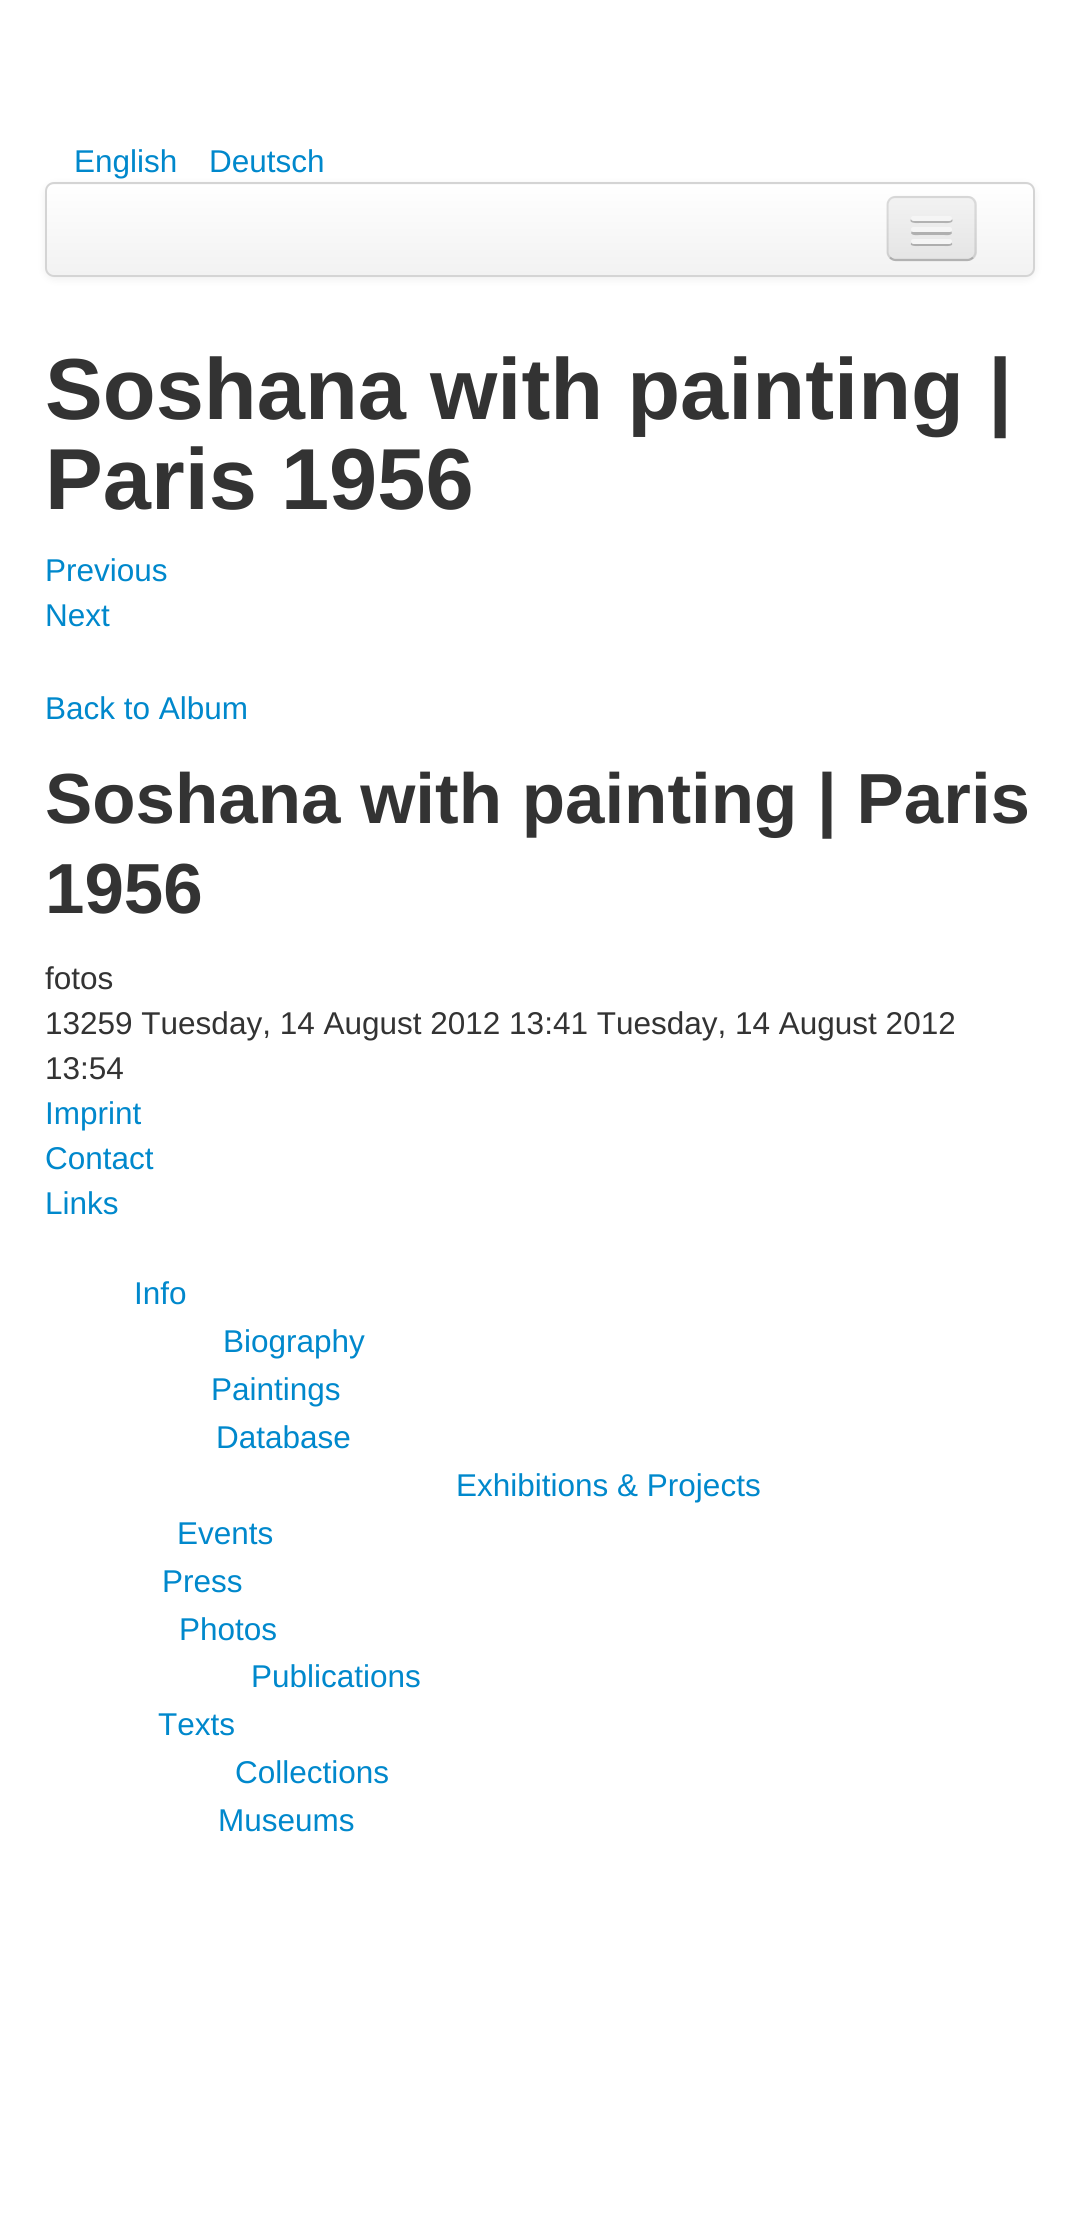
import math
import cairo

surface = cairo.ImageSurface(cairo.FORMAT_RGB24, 1080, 2227)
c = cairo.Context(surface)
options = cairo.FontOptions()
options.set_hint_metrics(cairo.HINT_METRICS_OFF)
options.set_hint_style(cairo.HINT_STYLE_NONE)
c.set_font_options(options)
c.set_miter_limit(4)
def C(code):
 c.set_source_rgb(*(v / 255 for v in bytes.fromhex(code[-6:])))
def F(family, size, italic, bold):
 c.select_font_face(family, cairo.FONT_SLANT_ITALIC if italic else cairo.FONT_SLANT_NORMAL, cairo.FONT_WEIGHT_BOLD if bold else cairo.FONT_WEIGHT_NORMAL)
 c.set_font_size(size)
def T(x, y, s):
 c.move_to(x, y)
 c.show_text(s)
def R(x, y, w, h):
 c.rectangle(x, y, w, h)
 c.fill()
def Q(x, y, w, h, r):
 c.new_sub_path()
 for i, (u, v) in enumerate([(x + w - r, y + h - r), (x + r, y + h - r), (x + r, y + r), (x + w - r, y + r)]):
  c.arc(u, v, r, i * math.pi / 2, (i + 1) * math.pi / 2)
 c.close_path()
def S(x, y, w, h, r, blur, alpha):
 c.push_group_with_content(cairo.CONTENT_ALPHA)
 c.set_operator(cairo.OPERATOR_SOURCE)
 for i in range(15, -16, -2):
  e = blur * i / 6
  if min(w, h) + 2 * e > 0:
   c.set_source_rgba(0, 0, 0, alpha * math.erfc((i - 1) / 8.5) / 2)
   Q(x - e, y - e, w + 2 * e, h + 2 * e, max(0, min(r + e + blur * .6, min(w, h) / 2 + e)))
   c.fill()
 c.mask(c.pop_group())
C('ffffff')
c.paint()
C('000000')
S(45,185,990,94,9,4.5,.07)
F('Liberation Sans',31.5,0,0)
C('0088cc')
T(74,172,'English')
T(209,172,'Deutsch')
C('fafafa')
Q(45,182,990,95,9)
c.fill()
c.save()
Q(45,182,990,95,9)
c.clip()
gradient = cairo.LinearGradient(540,184,540,275)
gradient.add_color_stop_rgba(0,1,1,1,1)
gradient.add_color_stop_rgba(1,0.949,0.949,0.949,1)
c.set_source(gradient)
R(45,185,990,90)
c.restore()
Q(46,183,988,93,8)
C('d4d4d4')
c.stroke()
C('ededed')
Q(887,196,90,65,9)
c.fill()
c.save()
Q(887,196,90,65,9)
c.clip()
gradient = cairo.LinearGradient(932,198,932,259)
gradient.add_color_stop_rgba(0,0.949,0.949,0.949,1)
gradient.add_color_stop_rgba(1,0.898,0.898,0.898,1)
c.set_source(gradient)
R(887,198,90,61)
c.restore()
c.new_path()
c.move_to(973,257.5)
c.curve_to(971.5,259,969.5,260,967.5,260)
c.line_to(895.5,260)
c.curve_to(893.5,260,891.5,259,890,257.5)
c.set_source_rgba(0,0,0,0.25)
c.set_line_width(2.2)
c.stroke()
c.new_path()
c.move_to(890,257.5)
c.curve_to(888.5,256,887.5,254,887.5,252)
c.line_to(887.5,205)
c.curve_to(887.5,202.5,888.5,200.5,890,199)
c.curve_to(891.5,197.5,893.5,197,895.5,197)
c.line_to(967.5,197)
c.curve_to(969.5,197,971.5,197.5,973,199)
c.curve_to(974.5,200.5,975.5,202.5,975.5,205)
c.line_to(975.5,252)
c.curve_to(975.5,254,974.5,256,973,257.5)
c.set_source_rgba(0,0,0,0.1)
c.stroke()
C('b2b2b2')
c.new_path()
c.move_to(911,219)
c.curve_to(908,224,919,223,920,223)
c.line_to(944,223)
c.curve_to(944,223,955,224,952,219)
c.curve_to(951,220,950,220,950,220)
c.line_to(914,220)
c.curve_to(913,220,912,220,911,219)
c.close_path()
c.fill()
C('f5f5f5')
Q(911,216,41,5,2.5)
c.fill()
C('b0b0b0')
c.new_path()
c.move_to(912,231)
c.line_to(911,233)
c.curve_to(912,236,918,235,920,235)
c.line_to(944,235)
c.curve_to(945,235,951,236,952,233)
c.line_to(951,231)
c.line_to(950,232)
c.line_to(913,232)
c.close_path()
c.fill()
C('f5f5f5')
Q(911,227,41,5,2.5)
c.fill()
C('aeaeae')
c.new_path()
c.move_to(912,242)
c.curve_to(907,247,919,246,920,246)
c.line_to(944,246)
c.curve_to(944,246,956,247,951,242)
c.line_to(950,243)
c.line_to(913,243)
c.close_path()
c.fill()
C('f5f5f5')
Q(911,239,41,5,2.5)
c.fill()
F('Liberation Sans',86.6,0,1)
C('333333')
T(45,419,'Soshana with painting |')
T(45,509,'Paris 1956')
F('Liberation Sans',31.5,0,0)
C('0088cc')
T(45,581,'Previous')
T(45,626,'Next')
T(45,719,'Back to Album')
F('Liberation Sans',70.9,0,1)
C('333333')
T(45,823,'Soshana with painting | Paris')
T(45,913,'1956')
F('Liberation Sans',31.5,0,0)
T(45,989,'fotos')
T(45,1034,'13259 Tuesday, 14 August 2012 13:41 Tuesday, 14 August 2012')
T(45,1079,'13:54')
C('0088cc')
T(45,1124,'Imprint')
T(45,1169,'Contact')
T(45,1214,'Links')
T(134,1304,'Info')
T(223,1352,'Biography')
T(211,1400,'Paintings')
T(216,1448,'Database')
T(456,1496,'Exhibitions & Projects')
T(177,1544,'Events')
T(162,1592,'Press')
T(179,1640,'Photos')
T(251,1687,'Publications')
T(158,1735,'Texts')
T(235,1783,'Collections')
T(218,1831,'Museums')
surface.write_to_png('o.png')
